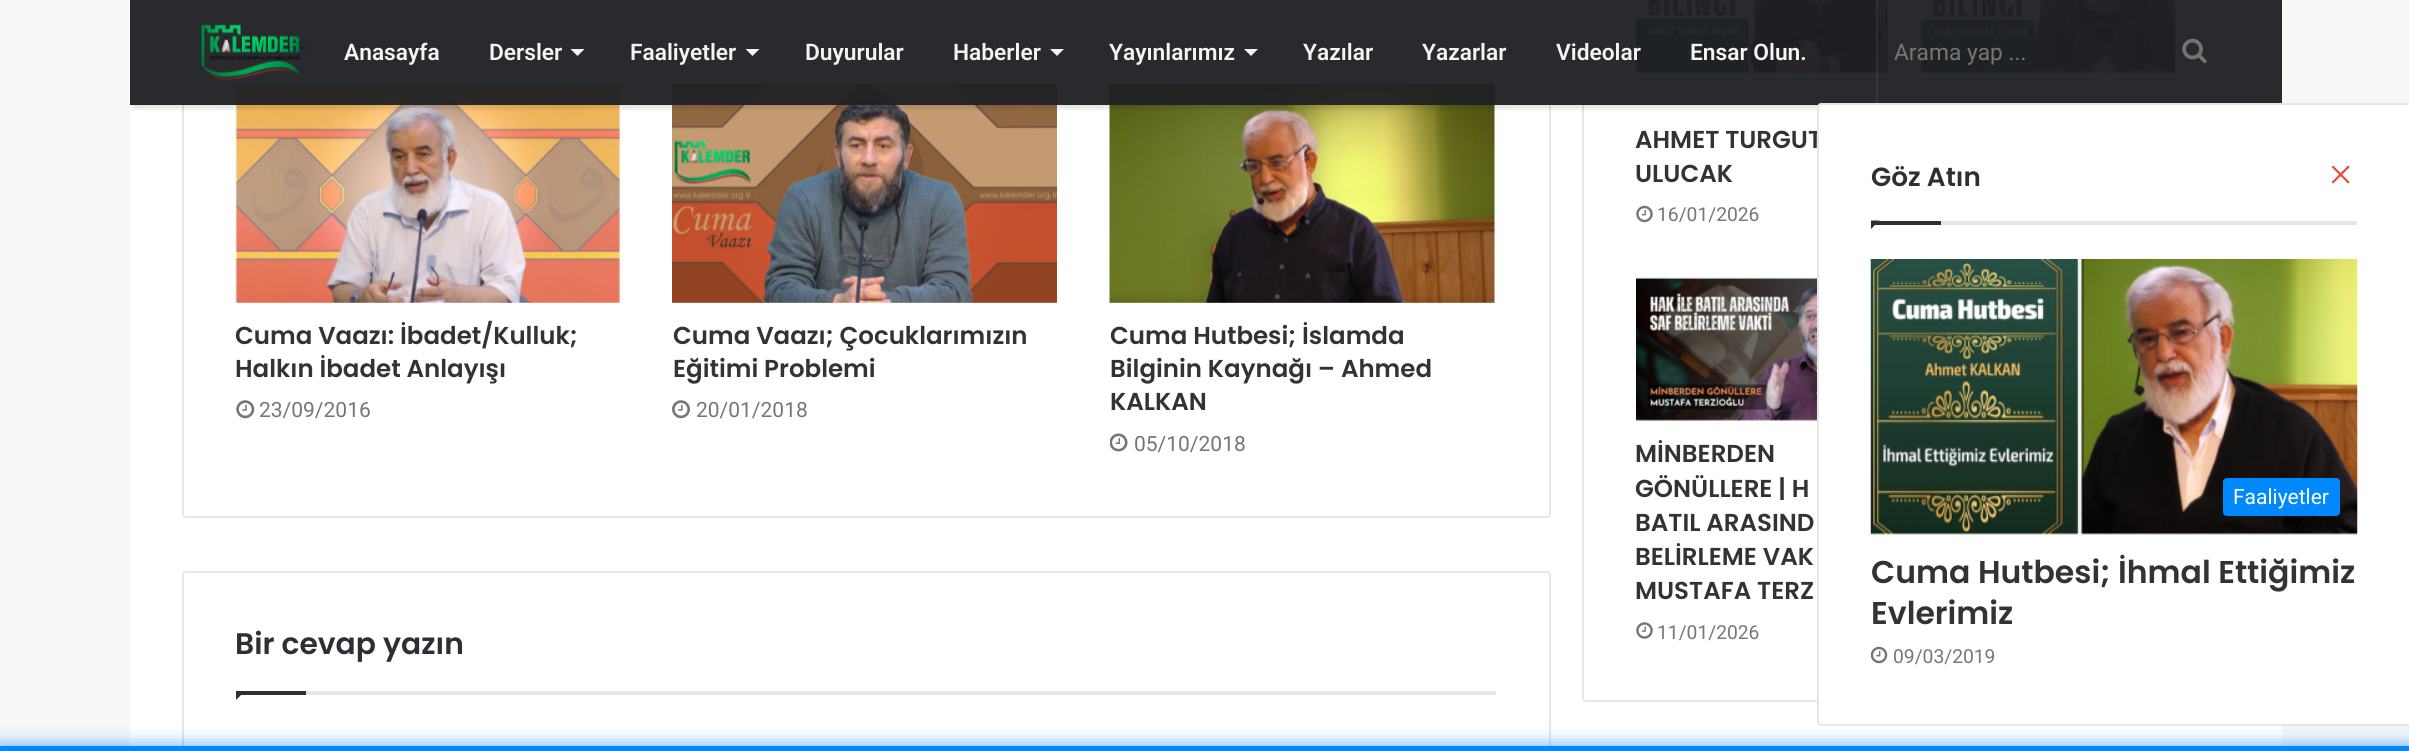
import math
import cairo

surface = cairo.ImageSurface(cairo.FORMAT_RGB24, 2409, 751)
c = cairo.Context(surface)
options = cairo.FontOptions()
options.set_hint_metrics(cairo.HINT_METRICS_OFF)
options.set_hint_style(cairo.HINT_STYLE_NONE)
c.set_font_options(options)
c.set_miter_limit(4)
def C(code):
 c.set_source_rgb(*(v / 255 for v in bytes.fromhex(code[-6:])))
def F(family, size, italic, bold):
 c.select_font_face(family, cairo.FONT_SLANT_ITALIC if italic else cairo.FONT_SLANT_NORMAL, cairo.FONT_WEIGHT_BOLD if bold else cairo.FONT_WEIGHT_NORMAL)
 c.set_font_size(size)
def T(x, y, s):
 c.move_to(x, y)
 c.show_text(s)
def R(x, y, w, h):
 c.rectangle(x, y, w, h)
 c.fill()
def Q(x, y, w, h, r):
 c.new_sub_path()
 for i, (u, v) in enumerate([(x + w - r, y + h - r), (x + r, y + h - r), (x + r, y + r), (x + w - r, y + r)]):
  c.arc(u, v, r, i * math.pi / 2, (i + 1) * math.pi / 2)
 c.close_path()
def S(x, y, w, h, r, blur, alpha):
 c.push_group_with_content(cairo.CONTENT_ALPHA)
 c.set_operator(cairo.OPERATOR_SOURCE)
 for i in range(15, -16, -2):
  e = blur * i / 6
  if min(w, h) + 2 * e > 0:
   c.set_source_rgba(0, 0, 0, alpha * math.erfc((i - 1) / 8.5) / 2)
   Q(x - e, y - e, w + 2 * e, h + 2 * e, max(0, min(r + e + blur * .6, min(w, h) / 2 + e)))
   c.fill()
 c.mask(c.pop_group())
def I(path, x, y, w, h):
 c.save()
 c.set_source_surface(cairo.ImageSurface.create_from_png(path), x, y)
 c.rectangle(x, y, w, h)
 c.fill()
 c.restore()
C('f7f7f7')
c.paint()
C('ffffff')
R(130,0,2152,746)
Q(183,-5,1367,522,3)
C('e6e6e6')
c.stroke()
R(306,46,1190,4)
C('0088ff')
c.new_path()
c.move_to(236,45.5)
c.line_to(245,45.5)
c.line_to(236,54)
c.close_path()
c.fill()
R(236,46,70,4)
I('3.png',235,84,385,219)
I('5.png',672,84,385,219)
I('7.png',1109,84,386,219)
Q(1583,-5,646,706,3)
C('e6e6e6')
c.stroke()
I('9.png',1921,0,254,73)
I('10.png',1636,0,253,73)
c.save()
c.rectangle(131,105,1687,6)
c.clip()
C('000000')
S(133,11,2146,98,0,2,.1)
c.restore()
c.set_source_rgba(0.122,0.125,0.141,0.95)
R(130,0,2152,105)
I('1.png',200,24,101,56)
F('Roboto SemiBold',22.75,0,0)
C('f4f4f5')
T(344,60,'Anasayfa')
T(489,60,'Dersler')
c.new_path()
c.move_to(570.5,49)
c.line_to(584.5,49)
c.line_to(577.5,56)
c.close_path()
c.fill()
T(630,60,'Faaliyetler')
c.new_path()
c.move_to(745.5,49)
c.line_to(759.5,49)
c.line_to(752.5,56)
c.close_path()
c.fill()
T(805,60,'Duyurular')
T(953,60,'Haberler')
c.new_path()
c.move_to(1050,49)
c.line_to(1064,49)
c.line_to(1057,56)
c.close_path()
c.fill()
T(1109,60,'Yayınlarımız')
c.new_path()
c.move_to(1244,49)
c.line_to(1258,49)
c.line_to(1251,56)
c.close_path()
c.fill()
T(1303,60,'Yazılar')
T(1422,60,'Yazarlar')
T(1556,60,'Videolar')
T(1690,60,'Ensar Olun.')
c.set_source_rgba(1,1,1,0.07)
R(1876,0,2,105)
F('Roboto',22.75,0,0)
C('767676')
T(1894,60,'Arama yap ...')
I('2.png',2182,38,25,26)
F('Poppins SemiBold',24.5,0,0)
C('333333')
T(235,344,'Cuma Vaazı: İbadet/Kulluk;')
T(235,377,'Halkın İbadet Anlayışı')
I('4.png',236,400,19,19)
F('Roboto',21,0,0)
C('767676')
T(259,417,'23/09/2016')
F('Poppins SemiBold',24.5,0,0)
C('333333')
T(673,344,'Cuma Vaazı; Çocuklarımızın')
T(673,377,'Eğitimi Problemi')
I('6.png',672,400,18,19)
F('Roboto',21,0,0)
C('767676')
T(696,417,'20/01/2018')
F('Poppins SemiBold',24.5,0,0)
C('333333')
T(1110,344,'Cuma Hutbesi; İslamda')
T(1110,377,'Bilginin Kaynağı – Ahmed')
T(1110,410,'KALKAN')
I('8.png',1110,433,18,19)
F('Roboto',21,0,0)
C('767676')
T(1134,451,'05/10/2018')
Q(183,572,1367,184,3)
C('e6e6e6')
c.stroke()
R(306,691,1190,4)
F('Poppins SemiBold',29.75,0,0)
C('2c2f34')
T(235,654,'Bir cevap yazın')
c.new_path()
c.move_to(236,691)
c.line_to(245,691)
c.line_to(236,700)
c.close_path()
c.fill()
R(236,691,70,4)
F('Poppins SemiBold',24.5,0,0)
C('333333')
T(1635,148,'AHMET TURGUT')
T(1635,182,'ULUCAK')
I('11.png',1636,205,17,18)
F('Roboto',19.25,0,0)
C('767676')
T(1657,221,'16/01/2026')
I('12.png',1636,277,181,144)
F('Poppins SemiBold',24.5,0,0)
C('333333')
T(1635,462,'MİNBERDEN')
T(1635,497,'GÖNÜLLERE | H')
T(1635,531,'BATIL ARASIND')
T(1635,565,'BELİRLEME VAK')
T(1635,599,'MUSTAFA TERZ')
I('13.png',1636,622,17,17)
F('Roboto',19.25,0,0)
C('767676')
T(1657,639,'11/01/2026')
C('ffffff')
c.new_path()
c.move_to(1821,103)
c.line_to(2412,103)
c.line_to(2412,726)
c.line_to(1821,726)
c.curve_to(1819,726,1817,724,1817,722)
c.line_to(1817,107)
c.curve_to(1817,105,1819,103,1821,103)
c.close_path()
c.fill()
c.new_path()
c.move_to(1821,104)
c.line_to(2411,104)
c.line_to(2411,725)
c.line_to(1821,725)
c.curve_to(1819.5,725,1818,723.5,1818,722)
c.line_to(1818,107)
c.curve_to(1818,105.5,1819.5,104,1821,104)
c.close_path()
c.set_source_rgba(0,0,0,0.1)
c.stroke()
C('e6e6e6')
R(1941,221,416,4)
F('Poppins SemiBold',26.25,0,0)
C('2c2f34')
T(1871,186,'Göz Atın')
I('14.png',2331,165,19,19)
c.new_path()
c.move_to(1871,220.5)
c.line_to(1879.5,220.5)
c.line_to(1871,229)
c.close_path()
c.fill()
R(1871,221,70,4)
I('15.png',1870,259,488,276)
C('0088ff')
Q(2223,478,117,38,4)
c.fill()
F('Roboto',21,0,0)
C('ffffff')
T(2233,504,'Faaliyetler')
F('Poppins SemiBold',31.5,0,0)
C('333333')
T(1871,583,'Cuma Hutbesi; İhmal Ettiğimiz')
T(1871,624,'Evlerimiz')
I('16.png',1871,646,17,18)
F('Roboto',19.25,0,0)
C('767676')
T(1893,663,'09/03/2019')
C('0088ff')
S(0,746,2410,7,0,9,.7)
C('0088ff')
R(0,746,2409,5)
surface.write_to_png('o.png')
